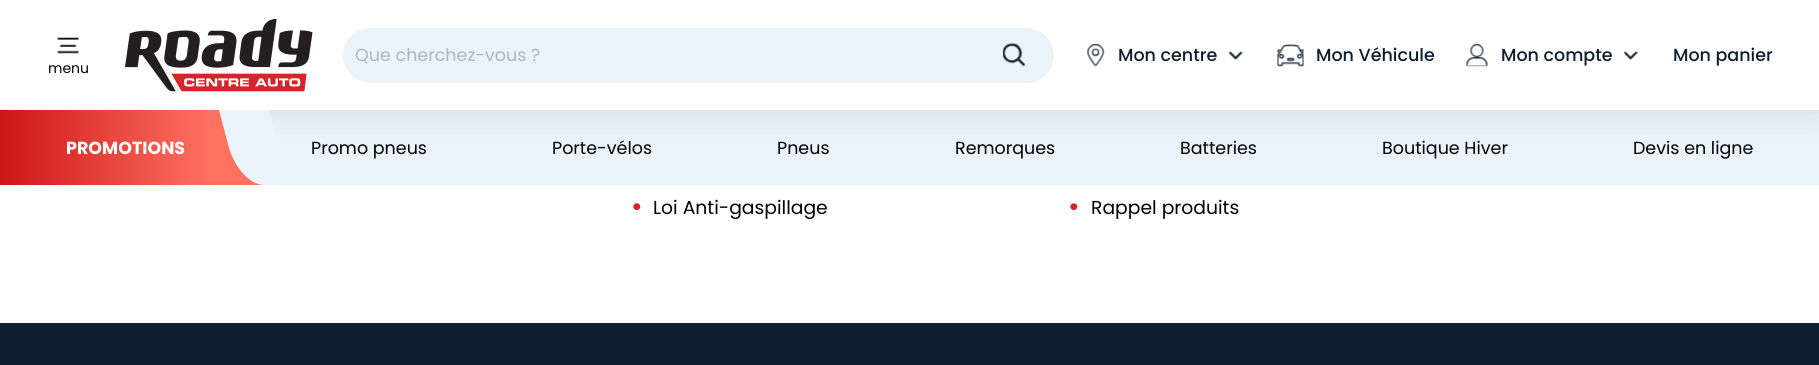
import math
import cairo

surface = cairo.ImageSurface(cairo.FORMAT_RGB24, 1819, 365)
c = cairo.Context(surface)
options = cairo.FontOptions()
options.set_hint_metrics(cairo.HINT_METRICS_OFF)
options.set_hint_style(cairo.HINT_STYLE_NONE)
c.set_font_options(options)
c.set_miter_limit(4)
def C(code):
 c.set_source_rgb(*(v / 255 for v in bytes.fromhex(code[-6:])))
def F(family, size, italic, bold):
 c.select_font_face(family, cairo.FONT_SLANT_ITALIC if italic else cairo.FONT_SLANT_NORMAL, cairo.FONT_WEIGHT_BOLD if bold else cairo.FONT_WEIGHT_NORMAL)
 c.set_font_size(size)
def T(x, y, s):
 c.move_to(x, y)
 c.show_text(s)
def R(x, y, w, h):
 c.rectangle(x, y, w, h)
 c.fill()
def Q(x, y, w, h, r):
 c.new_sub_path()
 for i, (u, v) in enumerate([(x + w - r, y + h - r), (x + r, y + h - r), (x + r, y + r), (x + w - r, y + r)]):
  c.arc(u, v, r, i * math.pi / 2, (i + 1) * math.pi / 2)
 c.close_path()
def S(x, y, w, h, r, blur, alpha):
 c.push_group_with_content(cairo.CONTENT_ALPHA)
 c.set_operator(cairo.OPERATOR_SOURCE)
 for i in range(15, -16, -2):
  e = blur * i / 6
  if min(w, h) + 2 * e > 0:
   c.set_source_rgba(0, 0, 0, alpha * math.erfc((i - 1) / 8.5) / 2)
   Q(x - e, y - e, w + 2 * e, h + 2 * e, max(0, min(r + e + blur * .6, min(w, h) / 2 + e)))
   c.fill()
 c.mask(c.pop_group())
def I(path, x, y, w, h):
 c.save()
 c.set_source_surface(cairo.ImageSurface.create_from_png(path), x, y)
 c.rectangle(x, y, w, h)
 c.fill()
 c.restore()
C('ffffff')
c.paint()
C('ebf3fa')
R(269,110,1550,75)
C('2d3843')
S(0,3,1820,110,0,14,.13)
C('ffffff')
R(0,0,1819,110)
I('1.png',125,19,188,73)
C('ebf3fa')
Q(343,28,711,55,27.5)
c.fill()
F('Poppins',17.5,0,0)
C('aeb6bc')
T(355,61,'Que cherchez-vous ?')
I('2.png',1003,43,23,24)
I('3.png',1086,43,19,24)
F('Poppins Medium',17.5,0,0)
C('0e1d2d')
T(1118,61,'Mon centre')
I('4.png',1228,51,15,9)
I('5.png',1277,44,27,23)
T(1316,61,'Mon Véhicule')
I('6.png',1466,43,22,24)
T(1501,61,'Mon compte')
I('7.png',1623,51,15,9)
T(1673,61,'Mon panier')
I('8.png',57,37,22,17)
F('Poppins',14,0,0)
C('000000')
T(48,73,'menu')
gradient = cairo.LinearGradient(-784,148,266,147)
gradient.add_color_stop_rgba(0,0.765,0,0.035,1)
gradient.add_color_stop_rgba(.7,0.765,0,0.035,1)
gradient.add_color_stop_rgba(.95,1,0.447,0.376,1)
gradient.add_color_stop_rgba(1,1,0.447,0.376,1)
c.set_source(gradient)
R(0,110,264,75)
F('Poppins',17.5,0,1)
C('ffffff')
T(66,154,'PROMOTIONS')
C('ebf3fa')
c.new_path()
c.move_to(219,110)
c.line_to(269,110)
c.line_to(289,185)
c.line_to(264,185)
c.curve_to(250,185,235,168,229,148)
c.close_path()
c.fill()
F('Poppins',17.5,0,0)
C('000000')
T(311,154,'Promo pneus')
T(552,154,'Porte-vélos')
T(777,154,'Pneus')
T(955,154,'Remorques')
T(1180,154,'Batteries')
T(1382,154,'Boutique Hiver')
T(1633,154,'Devis en ligne')
F('Poppins',28,0,0)
C('d7242c')
T(631,216,'•')
F('Poppins',18.75,0,0)
C('000000')
T(653,214,'Loi Anti-gaspillage')
F('Poppins',28,0,0)
C('d7242c')
T(1068,216,'•')
F('Poppins',18.75,0,0)
C('000000')
T(1091,214,'Rappel produits')
C('0e1d2d')
R(0,323,1819,42)
surface.write_to_png('o.png')
